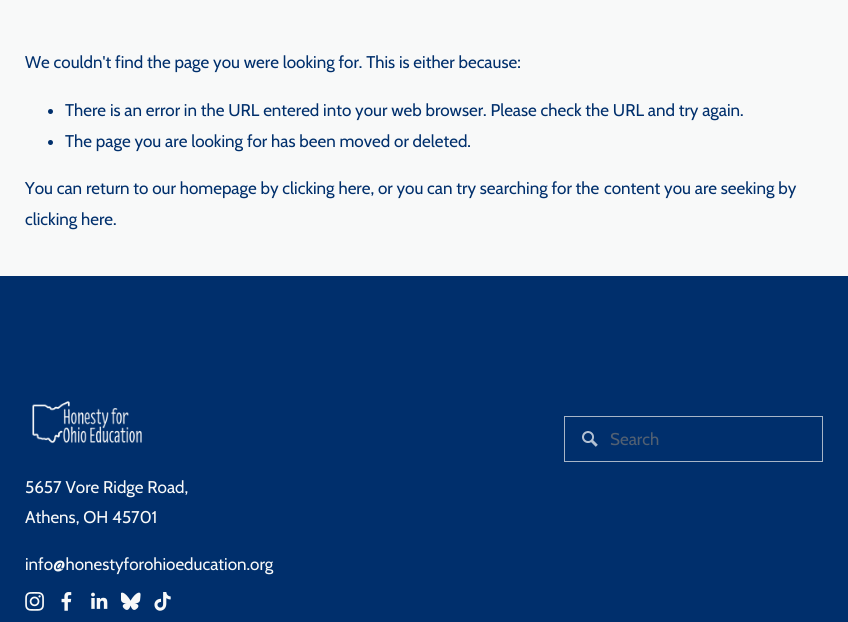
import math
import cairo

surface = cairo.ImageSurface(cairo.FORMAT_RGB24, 848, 622)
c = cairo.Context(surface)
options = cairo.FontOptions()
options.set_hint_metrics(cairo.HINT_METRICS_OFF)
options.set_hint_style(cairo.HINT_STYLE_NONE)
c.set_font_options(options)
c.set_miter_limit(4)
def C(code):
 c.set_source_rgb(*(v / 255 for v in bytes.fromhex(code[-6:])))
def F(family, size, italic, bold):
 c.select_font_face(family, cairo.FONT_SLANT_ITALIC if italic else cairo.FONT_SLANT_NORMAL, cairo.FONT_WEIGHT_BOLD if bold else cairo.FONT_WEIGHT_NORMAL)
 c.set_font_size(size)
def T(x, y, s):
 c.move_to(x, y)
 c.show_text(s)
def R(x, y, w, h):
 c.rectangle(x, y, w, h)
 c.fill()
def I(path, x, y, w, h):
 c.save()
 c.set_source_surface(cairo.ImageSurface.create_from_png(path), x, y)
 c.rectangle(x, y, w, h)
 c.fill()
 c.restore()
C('f8f9f9')
c.paint()
F('Cabin',17,0,0)
C('002f6c')
T(25,68,'We couldn\'t find the page you were looking for. This is either because:')
c.new_path()
c.arc(50.5,111.5,2.5,0,2 * math.pi)
c.fill()
T(65,116,'There is an error in the URL entered into your web browser. Please check the URL and try again.')
c.new_path()
c.arc(50.5,142.5,2.5,0,2 * math.pi)
c.fill()
T(65,147,'The page you are looking for has been moved or deleted.')
T(25,194,'You can return to our homepage by clicking here, or you can try searching for the')
T(604,194,'content you are seeking by')
T(25,225,'clicking here.')
R(0,276,848,346)
I('1.png',32,401,110,43)
I('2.png',582,431,16,16)
c.rectangle(564.5,416.5,258,45)
C('a7b5c7')
c.set_line_width(1)
c.stroke()
C('526072')
T(610,445,'Search')
C('f8f9f9')
T(25,493,'5657 Vore Ridge Road,')
T(25,523,'Athens, OH 45701')
T(25,570,'info@honestyforohioeducation.org')
I('3.png',25,592,19,19)
I('4.png',61,592,11,19)
I('5.png',91,592,17,17)
I('6.png',121,592,20,18)
I('7.png',154,592,17,19)
surface.write_to_png('o.png')
